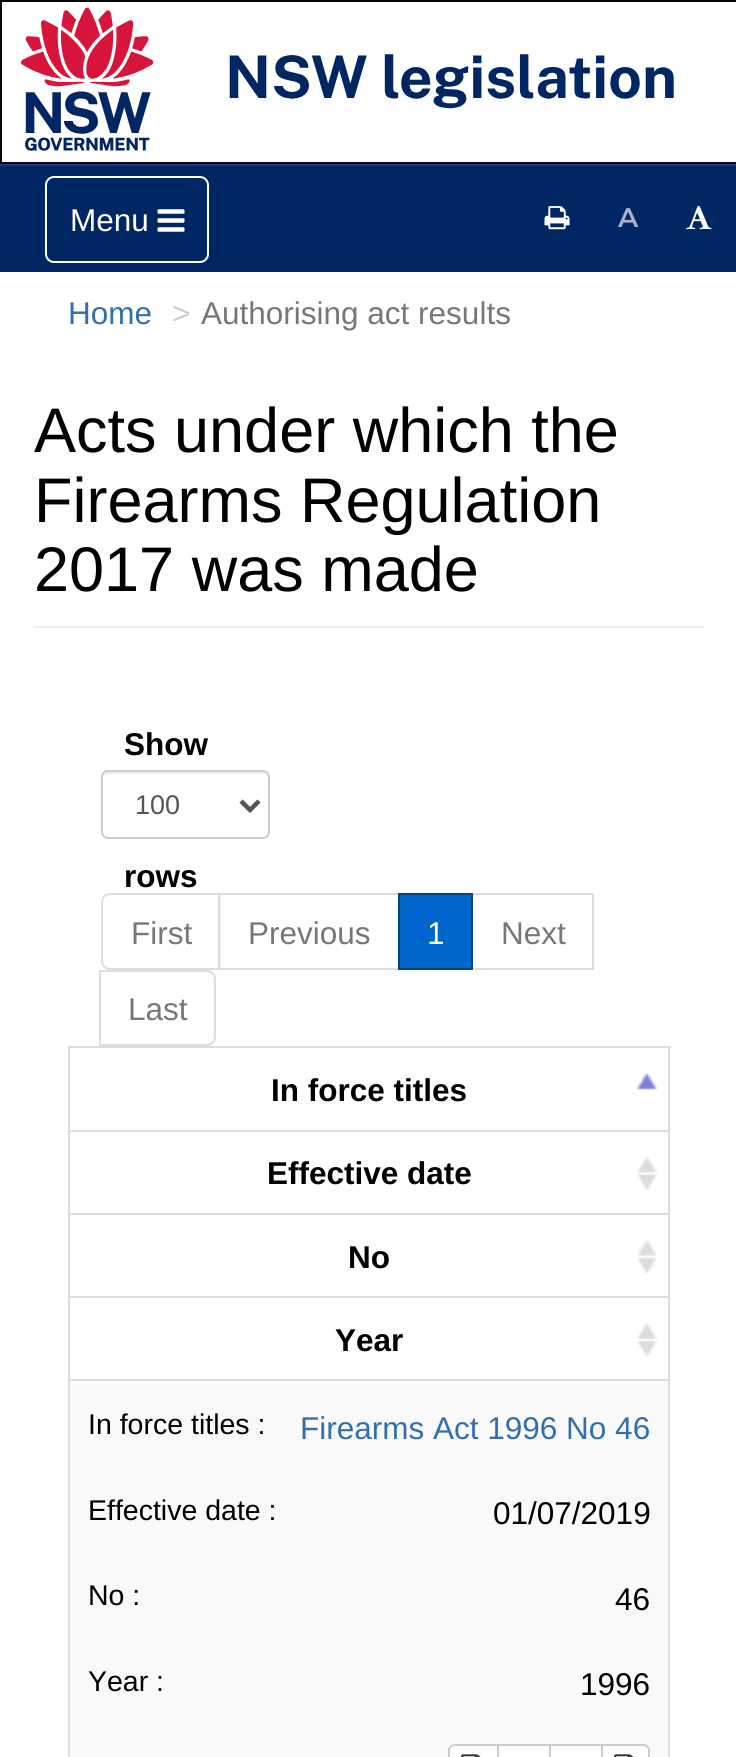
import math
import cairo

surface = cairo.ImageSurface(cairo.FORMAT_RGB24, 736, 1757)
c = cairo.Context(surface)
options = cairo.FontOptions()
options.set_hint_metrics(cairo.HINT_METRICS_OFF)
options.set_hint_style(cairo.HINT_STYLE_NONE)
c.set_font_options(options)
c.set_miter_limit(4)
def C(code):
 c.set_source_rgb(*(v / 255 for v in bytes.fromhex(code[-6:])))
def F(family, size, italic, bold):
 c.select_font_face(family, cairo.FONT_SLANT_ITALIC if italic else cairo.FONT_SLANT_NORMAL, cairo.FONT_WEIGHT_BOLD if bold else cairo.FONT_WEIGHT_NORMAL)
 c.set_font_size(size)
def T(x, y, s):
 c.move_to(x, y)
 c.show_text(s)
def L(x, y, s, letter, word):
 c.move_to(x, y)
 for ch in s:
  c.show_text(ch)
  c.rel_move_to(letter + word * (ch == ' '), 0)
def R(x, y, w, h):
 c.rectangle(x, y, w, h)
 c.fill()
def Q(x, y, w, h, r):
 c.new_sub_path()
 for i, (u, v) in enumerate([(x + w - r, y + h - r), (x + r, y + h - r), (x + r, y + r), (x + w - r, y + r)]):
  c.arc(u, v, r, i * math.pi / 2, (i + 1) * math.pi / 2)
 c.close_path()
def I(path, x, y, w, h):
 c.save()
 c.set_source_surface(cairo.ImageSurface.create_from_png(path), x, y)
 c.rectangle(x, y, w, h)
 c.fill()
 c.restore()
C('ffffff')
c.paint()
c.rectangle(1,1,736,162)
C('080808')
c.stroke()
I('1.png',21,7,653,144)
C('002664')
R(0,166,736,106)
C('1a3c74')
R(0,164,736,2)
Q(46,177,162,85,8)
C('ffffff')
c.stroke()
F('Liberation Sans',31.5,0,0)
T(70,231,'Menu')
I('2.png',157,209,28,23)
I('3.png',544,206,26,24)
F('Montserrat SemiBold',27,0,0)
C('a6b3c9')
L(618,227,'A',1,0)
I('4.png',686,206,26,24)
F('Liberation Sans',31.5,0,0)
C('3170ab')
T(68,324,'Home')
C('cccccc')
T(172,324,'>')
C('777777')
T(201,324,'Authorising act results')
C('eeeeee')
R(34,626,670,2)
F('Liberation Sans',63,0,0)
C('000000')
T(34,452,'Acts under which the')
T(34,522,'Firearms Regulation')
T(34,591,'2017 was made')
F('Liberation Sans',31.5,0,1)
T(124,755,'Show')
C('ececec')
c.new_path()
c.move_to(108,774)
c.line_to(263,774)
c.curve_to(266,774,268,776,268,778)
c.line_to(268,777)
c.curve_to(268,774,266,772,263,772)
c.line_to(109,772)
c.curve_to(106,772,104,774,104,777)
c.line_to(104,778)
c.curve_to(104,776,106,774,108,774)
c.close_path()
c.fill()
Q(102,771,167,67,6)
C('cccccc')
c.stroke()
c.new_path()
c.move_to(241,801)
c.line_to(250,810)
c.line_to(259,801)
C('555555')
c.set_line_width(4.5)
c.stroke()
F('Liberation Sans',27,0,0)
T(135,814,'100')
F('Liberation Sans',31.5,0,1)
C('000000')
T(124,887,'rows')
c.new_path()
c.move_to(110,894)
c.line_to(220,894)
c.line_to(220,969)
c.line_to(110,969)
c.curve_to(105.5,969,102,965.5,102,961)
c.line_to(102,902)
c.curve_to(102,897.5,105.5,894,110,894)
c.close_path()
C('dedede')
c.set_line_width(2)
c.stroke()
F('Liberation Sans',31.5,0,0)
C('777777')
T(131,944,'First')
c.set_source_rgba(1,1,1,0.65)
R(218,893,3,77)
c.rectangle(219,894,181,75)
c.set_source_rgba(0.8,0.8,0.8,0.65)
c.stroke()
C('777777')
T(248,944,'Previous')
c.rectangle(471,894,122,75)
C('dedede')
c.stroke()
C('0066cc')
c.rectangle(399,894,73,75)
c.fill_preserve()
C('014580')
c.stroke()
C('ffffff')
T(427,944,'1')
C('777777')
T(501,944,'Next')
c.new_path()
c.move_to(100,971)
c.line_to(207,971)
c.curve_to(211.5,971,215,974.5,215,979)
c.line_to(215,1037)
c.curve_to(215,1041.5,211.5,1045,207,1045)
c.line_to(100,1045)
c.close_path()
C('dedede')
c.stroke()
C('777777')
T(128,1020,'Last')
C('dddddd')
R(68,1046,603,2)
R(668,1046,2,711)
R(68,1046,2,711)
I('5.png',636,1072,22,18)
R(70,1130,598,2)
F('Liberation Sans',31.5,0,1)
C('000000')
T(271,1101,'In force titles')
I('6.png',636,1156,21,35)
C('dddddd')
R(70,1213,598,2)
C('000000')
T(267,1184,'Effective date')
I('7.png',636,1239,21,35)
C('dddddd')
R(70,1296,598,2)
C('000000')
T(348,1268,'No')
I('8.png',636,1322,22,35)
C('dddddd')
R(70,1379,598,2)
C('000000')
T(335,1351,'Year')
C('f9f9f9')
R(70,1382,598,375)
F('Liberation Sans',28.5,0,0)
C('000000')
T(88,1434,'In force titles :')
F('Liberation Sans',31.5,0,0)
C('3170ab')
T(300,1439,'Firearms Act 1996 No 46')
F('Liberation Sans',28.5,0,0)
C('000000')
T(88,1520,'Effective date :')
F('Liberation Sans',31.5,0,0)
T(493,1524,'01/07/2019')
F('Liberation Sans',28.5,0,0)
T(88,1605,'No :')
F('Liberation Sans',31.5,0,0)
T(615,1610,'46')
F('Liberation Sans',28.5,0,0)
T(88,1691,'Year :')
F('Liberation Sans',31.5,0,0)
T(580,1695,'1996')
C('ffffff')
c.new_path()
c.move_to(455,1745)
c.line_to(499,1745)
c.line_to(499,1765)
c.line_to(455,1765)
c.curve_to(451.5,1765,449,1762.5,449,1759)
c.line_to(449,1751)
c.curve_to(449,1747.5,451.5,1745,455,1745)
c.close_path()
c.fill_preserve()
C('cccccc')
c.stroke()
I('9.png',461,1754,20,3)
C('ffffff')
c.rectangle(498,1745,52,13)
c.fill_preserve()
C('cccccc')
c.stroke()
C('ffffff')
c.rectangle(550,1745,52,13)
c.fill_preserve()
C('cccccc')
c.stroke()
C('ffffff')
c.new_path()
c.move_to(602,1745)
c.line_to(643,1745)
c.curve_to(646.5,1745,649,1747.5,649,1751)
c.line_to(649,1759)
c.curve_to(649,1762.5,646.5,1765,643,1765)
c.line_to(602,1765)
c.close_path()
c.fill_preserve()
C('cccccc')
c.stroke()
I('9.png',614,1754,20,3)
surface.write_to_png('o.png')
